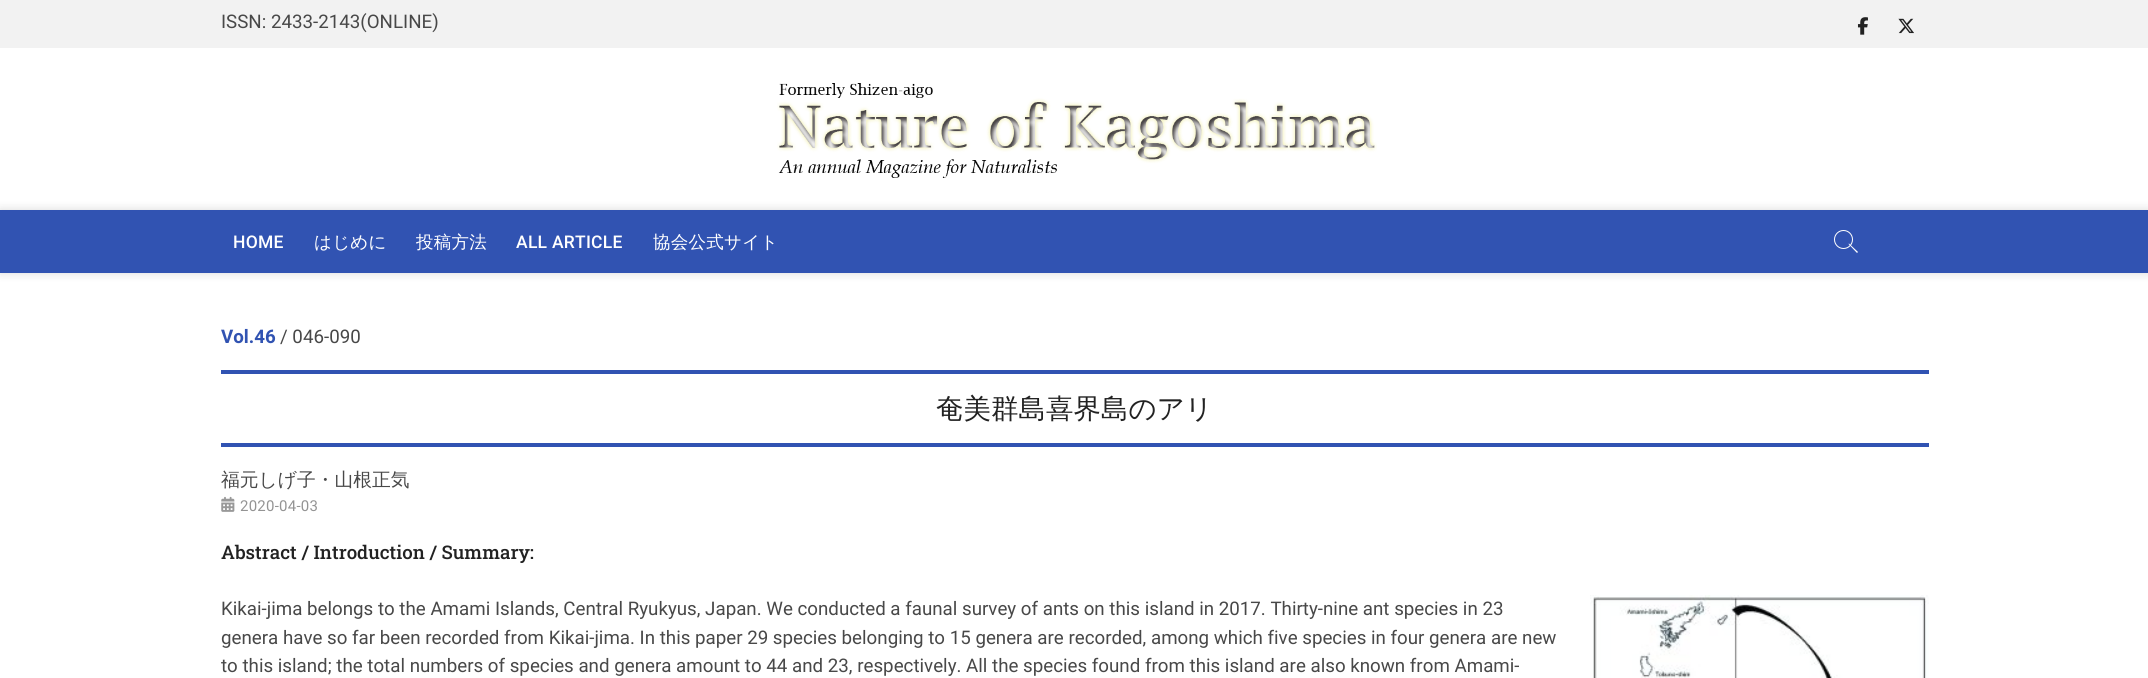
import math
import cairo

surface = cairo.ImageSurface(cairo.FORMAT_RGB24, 2148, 678)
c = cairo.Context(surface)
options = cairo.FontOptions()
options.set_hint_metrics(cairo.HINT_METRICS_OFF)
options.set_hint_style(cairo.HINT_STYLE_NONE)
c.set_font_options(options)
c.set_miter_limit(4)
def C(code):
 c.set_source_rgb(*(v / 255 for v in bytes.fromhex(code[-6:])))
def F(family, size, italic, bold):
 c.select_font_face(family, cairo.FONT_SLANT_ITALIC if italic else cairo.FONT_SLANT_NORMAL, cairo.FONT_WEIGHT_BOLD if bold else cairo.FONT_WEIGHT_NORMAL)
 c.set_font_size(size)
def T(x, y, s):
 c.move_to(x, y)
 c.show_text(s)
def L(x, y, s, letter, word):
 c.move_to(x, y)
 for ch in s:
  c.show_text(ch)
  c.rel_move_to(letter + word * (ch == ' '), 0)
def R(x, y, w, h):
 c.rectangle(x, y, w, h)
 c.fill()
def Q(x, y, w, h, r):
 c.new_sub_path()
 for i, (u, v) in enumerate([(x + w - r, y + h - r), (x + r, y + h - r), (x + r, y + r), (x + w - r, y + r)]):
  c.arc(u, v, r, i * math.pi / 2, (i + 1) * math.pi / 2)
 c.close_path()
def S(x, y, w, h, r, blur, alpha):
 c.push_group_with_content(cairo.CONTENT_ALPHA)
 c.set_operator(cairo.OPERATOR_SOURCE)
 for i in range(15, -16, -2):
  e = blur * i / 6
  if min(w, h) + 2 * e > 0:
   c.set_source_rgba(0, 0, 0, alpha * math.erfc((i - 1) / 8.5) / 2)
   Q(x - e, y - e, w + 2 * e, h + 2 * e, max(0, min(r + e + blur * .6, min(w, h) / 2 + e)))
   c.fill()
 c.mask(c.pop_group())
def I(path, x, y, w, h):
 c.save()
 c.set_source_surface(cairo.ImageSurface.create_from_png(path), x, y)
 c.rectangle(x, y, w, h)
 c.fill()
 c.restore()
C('ffffff')
c.paint()
C('f2f2f2')
R(0,0,2148,48)
F('Roboto',18.75,0,0)
C('484848')
T(221,28,'ISSN: 2433-2143(ONLINE)')
I('1.png',1857,17,11,18)
I('2.png',1898,18,16,16)
I('3.png',777,83,600,95)
C('000000')
S(0,210,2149,63,0,5,.15)
C('3153b2')
R(0,210,2148,63)
F('Roboto Medium',17.5,0,0)
C('ffffff')
L(233,248,'HOME',.25,0)
F('WenQuanYi Zen Hei Medium',17.5,0,0)
L(314,248,'はじめに',.25,0)
L(416,248,'投稿方法',.25,0)
F('Roboto Medium',17.5,0,0)
L(516,248,'ALL ARTICLE',.25,0)
F('WenQuanYi Zen Hei Medium',17.5,0,0)
L(653,248,'協会公式サイト',.25,0)
c.new_path()
c.arc(1843.5,239.5,9,0,2 * math.pi)
c.set_line_width(1)
c.stroke()
c.new_path()
c.move_to(1848.5,244)
c.line_to(1849,243.5)
c.line_to(1858,252)
c.line_to(1857,253)
c.close_path()
c.fill()
F('Roboto',18.75,0,1)
C('3153b2')
T(221,343,'Vol.46')
F('Roboto',18.75,0,0)
C('484848')
T(280,343,'/ 046-090')
C('3153b2')
R(221,370,1708,4)
R(221,443,1708,4)
F('WenQuanYi Zen Hei Medium',27.5,0,0)
C('222222')
T(936,418,'奄美群島喜界島のアリ')
F('WenQuanYi Zen Hei Medium',18.75,0,0)
C('484848')
T(221,486,'福元しげ子・山根正気')
I('4.png',221,496,14,16)
F('Roboto',15,0,0)
C('949494')
L(240,511,'2020-04-03',.25,0)
F('Roboto Slab Medium',18.75,0,0)
C('222222')
T(221,559,'Abstract / Introduction / Summary:')
F('Roboto',18.75,0,0)
C('484848')
T(221,615,'Kikai-jima belongs to the Amami Islands, Central Ryukyus, Japan. We conducted a faunal survey of ants on this island in 2017. Thirty-nine ant species in 23')
T(221,644,'genera have so far been recorded from Kikai-jima. In this paper 29 species belonging to 15 genera are recorded, among which five species in four genera are new')
T(221,672,'to this island; the total numbers of species and genera amount to 44 and 23, respectively. All the species found from this island are also known from Amami-')
I('5.png',1590,595,339,83)
surface.write_to_png('o.png')
